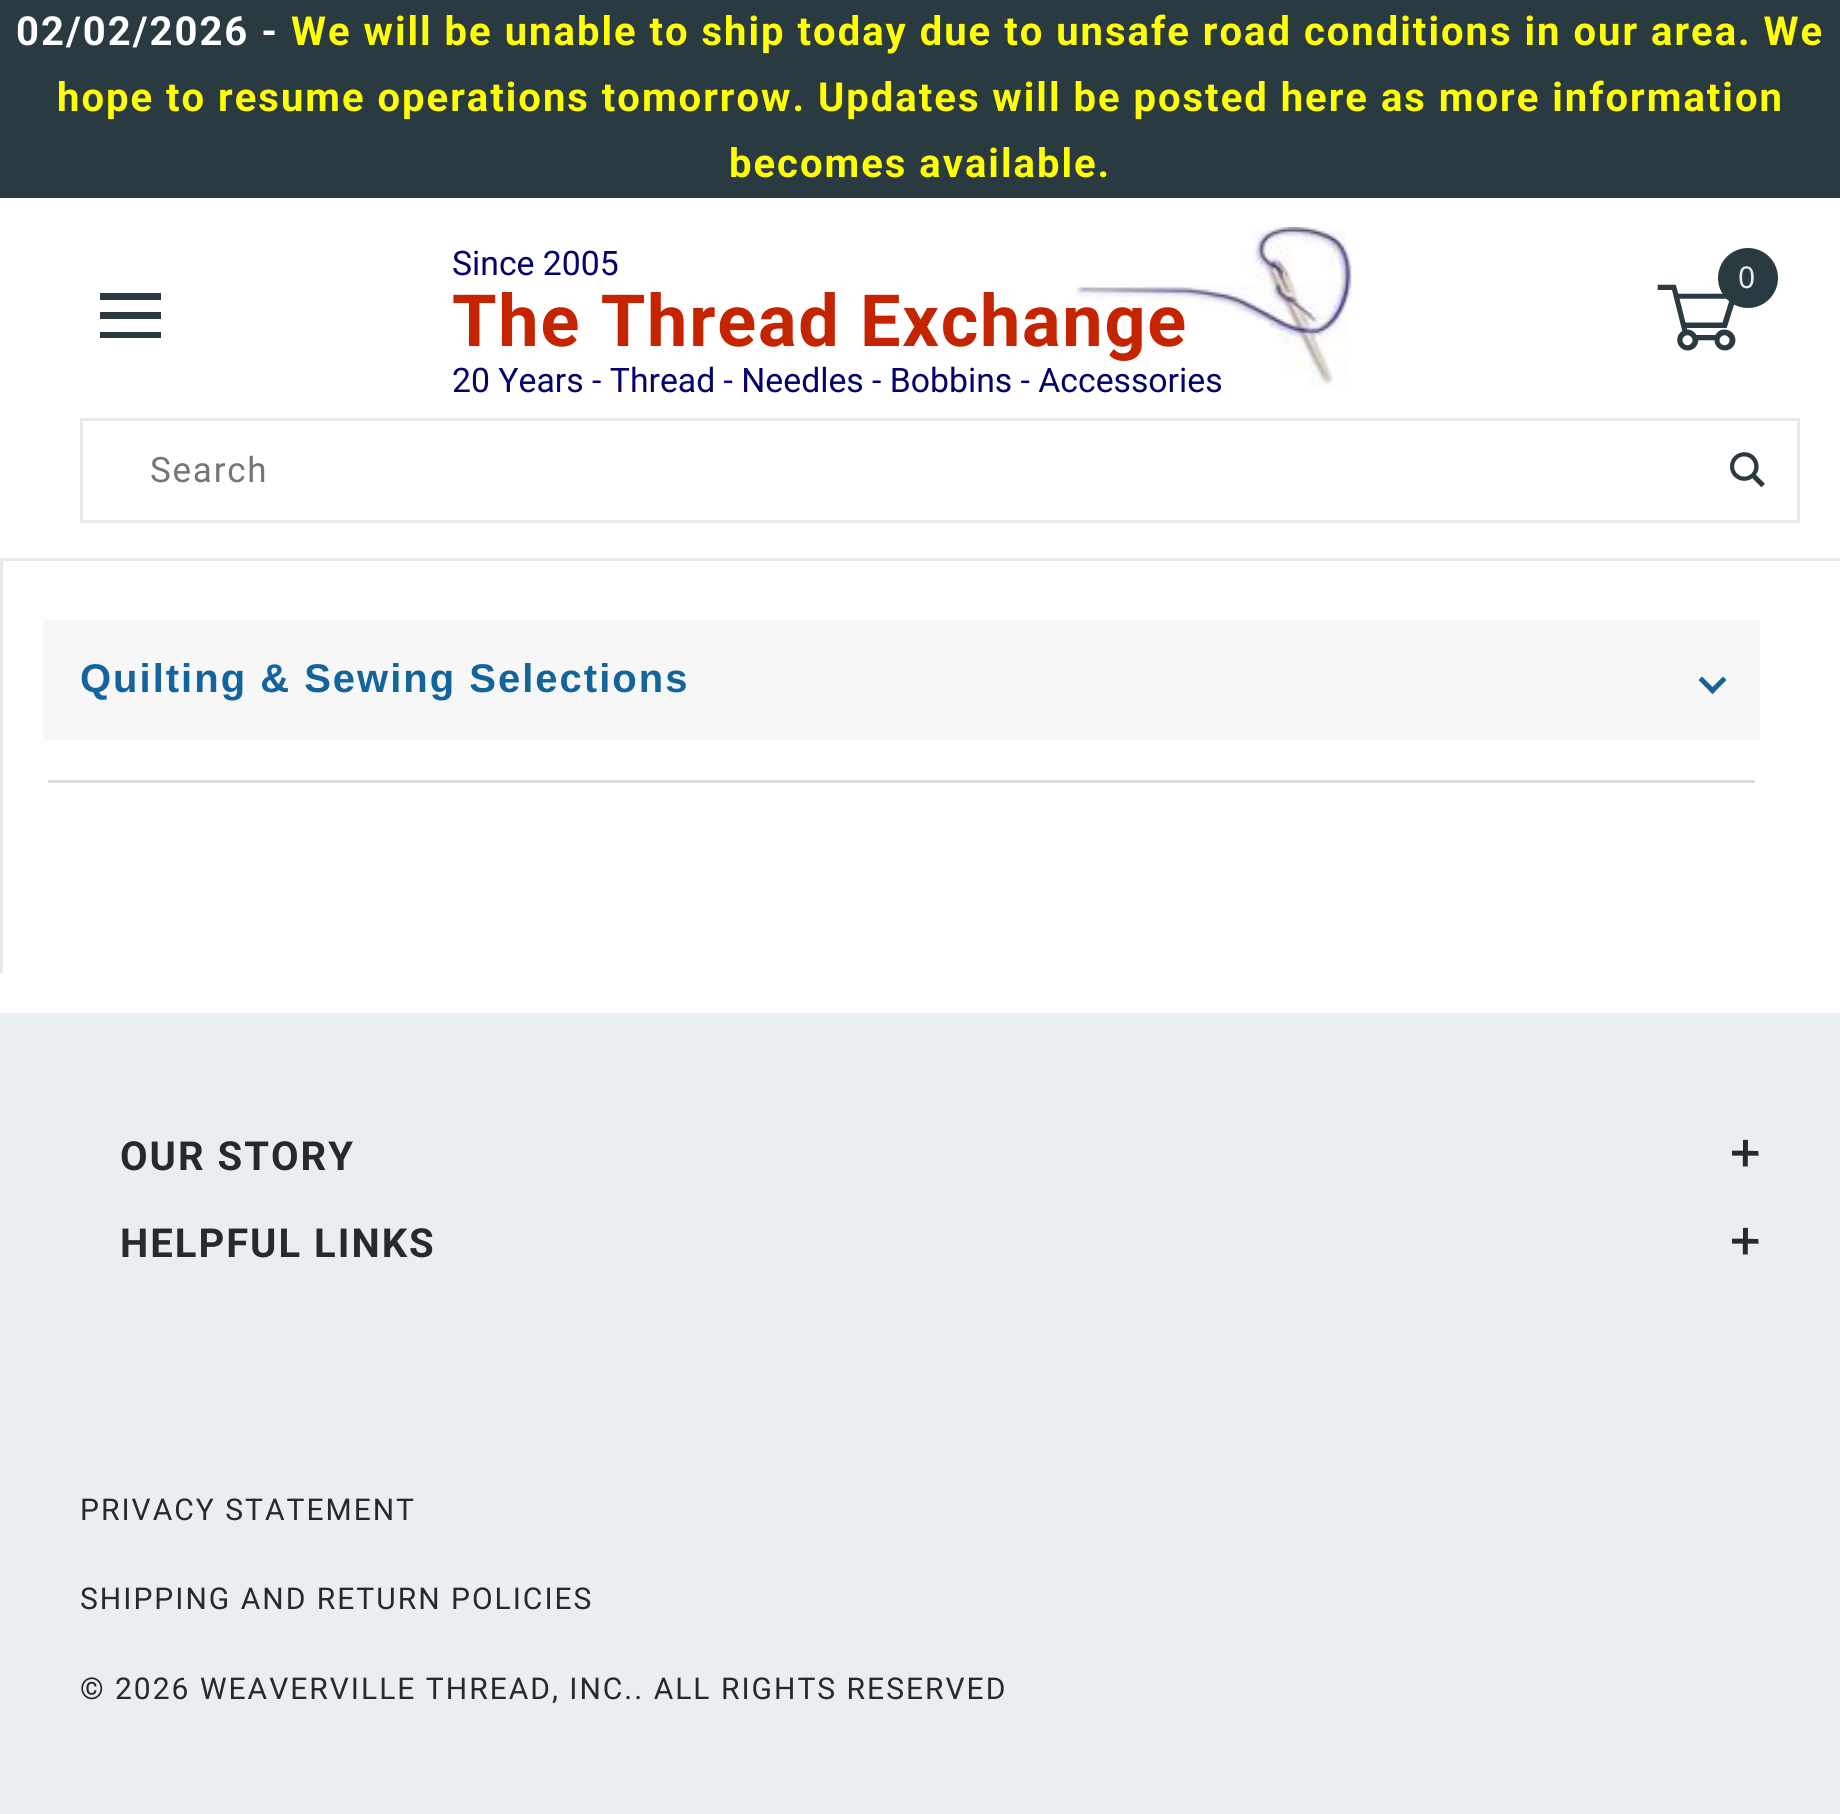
import math
import cairo

surface = cairo.ImageSurface(cairo.FORMAT_RGB24, 1840, 1814)
c = cairo.Context(surface)
options = cairo.FontOptions()
options.set_hint_metrics(cairo.HINT_METRICS_OFF)
options.set_hint_style(cairo.HINT_STYLE_NONE)
c.set_font_options(options)
c.set_miter_limit(4)
def C(code):
 c.set_source_rgb(*(v / 255 for v in bytes.fromhex(code[-6:])))
def F(family, size, italic, bold):
 c.select_font_face(family, cairo.FONT_SLANT_ITALIC if italic else cairo.FONT_SLANT_NORMAL, cairo.FONT_WEIGHT_BOLD if bold else cairo.FONT_WEIGHT_NORMAL)
 c.set_font_size(size)
def T(x, y, s):
 c.move_to(x, y)
 c.show_text(s)
def L(x, y, s, letter, word):
 c.move_to(x, y)
 for ch in s:
  c.show_text(ch)
  c.rel_move_to(letter + word * (ch == ' '), 0)
def R(x, y, w, h):
 c.rectangle(x, y, w, h)
 c.fill()
def I(path, x, y, w, h):
 c.save()
 c.set_source_surface(cairo.ImageSurface.create_from_png(path), x, y)
 c.rectangle(x, y, w, h)
 c.fill()
 c.restore()
C('ffffff')
c.paint()
C('eaeaea')
R(0,558,1840,3)
C('2a3a41')
R(0,0,1840,198)
F('Roboto',40,0,1)
C('ffffff')
L(16,45,'02/02/2026 -',2,0)
C('ffff00')
L(291,45,'We will be unable to ship today due to unsafe road conditions in our area. We',2,0)
L(57,111,'hope to resume operations tomorrow. Updates will be posted here as more information',2,0)
L(729,177,'becomes available.',2,0)
I('1.png',1075,227,277,160)
F('Roboto',33.75,0,0)
C('04036b')
T(452,275,'Since 2005')
F('Roboto',72,0,1)
C('c42400')
L(452,346,'The Thread Exchange',1.75,0)
F('Roboto',33.75,0,0)
C('04036b')
T(452,392,'20 Years - Thread - Needles - Bobbins - Accessories')
C('2a3a41')
c.new_path()
c.arc(1748,278,30,0,2 * math.pi)
c.fill()
F('Noto Sans',30,0,0)
C('eaeaea')
L(1738,288,'0',2,0)
I('2.png',1657,284,79,67)
C('2a3a41')
c.new_path()
c.move_to(100,332)
c.line_to(100,338)
c.line_to(161,338)
c.line_to(161,332)
c.close_path()
c.move_to(100,312)
c.line_to(100,319)
c.line_to(161,319)
c.line_to(161,312)
c.close_path()
c.move_to(100,293)
c.line_to(100,300)
c.line_to(161,300)
c.line_to(161,293)
c.close_path()
c.fill()
c.rectangle(81.5,419.5,1717,102)
C('eaeaea')
c.set_line_width(3)
c.stroke()
F('Roboto',35,0,0)
C('757575')
L(150,482,'Search',1.75,0)
I('3.png',1730,452,35,36)
C('eaeaea')
R(0,561,3,412)
C('dddddd')
R(48,780,1707,3)
C('f7f7f7')
R(43,620,1717,120)
F('Liberation Sans',40,0,1)
C('12649b')
L(80,692,'Quilting & Sewing Selections',2,0)
c.new_path()
c.move_to(1723,676.5)
c.line_to(1726.5,680)
c.line_to(1712.5,694)
c.line_to(1709,690.5)
c.close_path()
c.fill()
c.new_path()
c.move_to(1702,676.5)
c.line_to(1716,690.5)
c.line_to(1712.5,694)
c.line_to(1698.5,680)
c.close_path()
c.fill()
C('e9eef1')
R(0,1013,1840,801)
F('Roboto',40,0,1)
C('252b2d')
L(120,1170,'OUR STORY',2,0)
F('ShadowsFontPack',26,0,1)
L(1732,1165,'=',2,0)
F('Roboto',40,0,1)
L(120,1257,'HELPFUL LINKS',2,0)
F('ShadowsFontPack',26,0,1)
L(1732,1253,'=',2,0)
F('Roboto',30,0,0)
L(80,1520,'PRIVACY STATEMENT',2,0)
L(80,1609,'SHIPPING AND RETURN POLICIES',2,0)
L(80,1699,'© 2026 WEAVERVILLE THREAD, INC.. ALL RIGHTS RESERVED',2,0)
surface.write_to_png('o.png')
